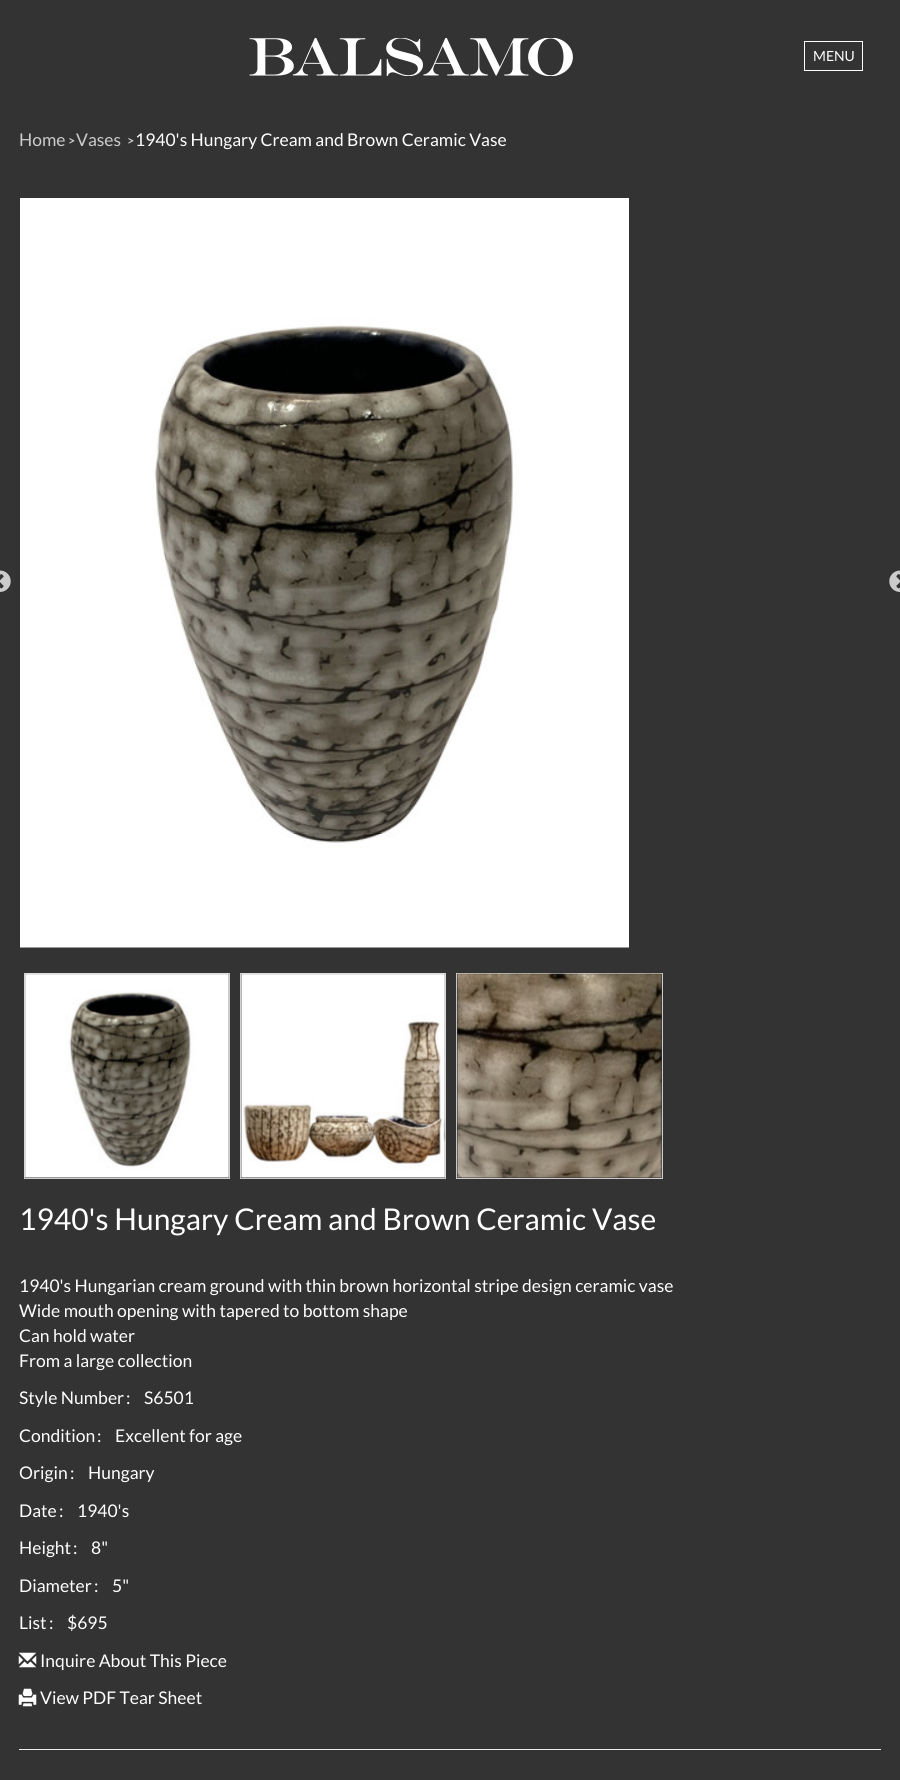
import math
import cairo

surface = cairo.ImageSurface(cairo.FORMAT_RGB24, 900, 1780)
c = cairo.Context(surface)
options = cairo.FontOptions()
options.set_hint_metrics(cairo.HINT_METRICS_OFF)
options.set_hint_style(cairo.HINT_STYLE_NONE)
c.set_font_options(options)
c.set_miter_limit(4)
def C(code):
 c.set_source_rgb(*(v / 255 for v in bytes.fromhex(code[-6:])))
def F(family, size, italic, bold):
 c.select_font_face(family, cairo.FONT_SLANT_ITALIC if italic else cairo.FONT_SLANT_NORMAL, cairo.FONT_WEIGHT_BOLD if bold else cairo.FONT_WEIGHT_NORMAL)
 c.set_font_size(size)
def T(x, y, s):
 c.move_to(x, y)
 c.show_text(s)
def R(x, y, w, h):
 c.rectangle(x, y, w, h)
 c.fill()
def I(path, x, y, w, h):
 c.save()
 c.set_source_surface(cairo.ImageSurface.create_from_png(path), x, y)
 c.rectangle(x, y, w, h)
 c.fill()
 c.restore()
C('333333')
c.paint()
I('1.png',249,38,324,38)
c.rectangle(804.5,41.5,58,29)
C('ffffff')
c.set_line_width(1)
c.stroke()
F('Lato',14,0,0)
T(813,61,'MENU')
F('Lato',17.5,0,0)
C('cccccc')
T(19,146,'Home')
F('Lato',12,0,1)
T(68,145,'>')
F('Lato',17.5,0,0)
T(76,146,'Vases')
F('Lato',12,0,1)
T(127,145,'>')
F('Lato',17.5,0,0)
C('ffffff')
T(135,146,'1940\'s Hungary Cream and Brown Ceramic Vase')
I('2.png',0,570,11,22)
I('3.png',20,198,609,750)
I('4.png',889,570,11,22)
c.rectangle(24.5,973.5,205,205)
C('cccccc')
c.stroke()
I('5.png',24,973,205,205)
c.rectangle(240.5,973.5,205,205)
c.stroke()
I('6.png',240,973,206,205)
c.rectangle(456.5,973.5,206,205)
c.stroke()
I('7.png',456,973,206,205)
F('Lato',30,0,0)
C('ffffff')
T(19,1230,'1940\'s Hungary Cream and Brown Ceramic Vase')
F('Lato',17.5,0,0)
T(19,1292,'1940\'s Hungarian cream ground with thin brown horizontal stripe design ceramic vase')
T(19,1317,'Wide mouth opening with tapered to bottom shape')
T(19,1342,'Can hold water')
T(19,1367,'From a large collection')
T(19,1404,'Style Number')
T(126,1404,':')
T(144,1404,'S6501')
T(19,1442,'Condition')
T(97,1442,':')
T(115,1442,'Excellent for age')
T(19,1479,'Origin')
T(70,1479,':')
T(88,1479,'Hungary')
T(19,1517,'Date')
T(59,1517,':')
T(77,1517,'1940\'s')
T(19,1554,'Height')
T(73,1554,':')
T(91,1554,'8"')
T(19,1592,'Diameter')
T(94,1592,':')
T(112,1592,'5"')
T(19,1629,'List')
T(49,1629,':')
T(67,1629,'$695')
I('8.png',18,1652,19,16)
T(40,1667,'Inquire About This Piece')
I('9.png',18,1688,19,19)
T(40,1704,'View PDF Tear Sheet')
C('eeeeee')
R(19,1749,862,1)
surface.write_to_png('o.png')
